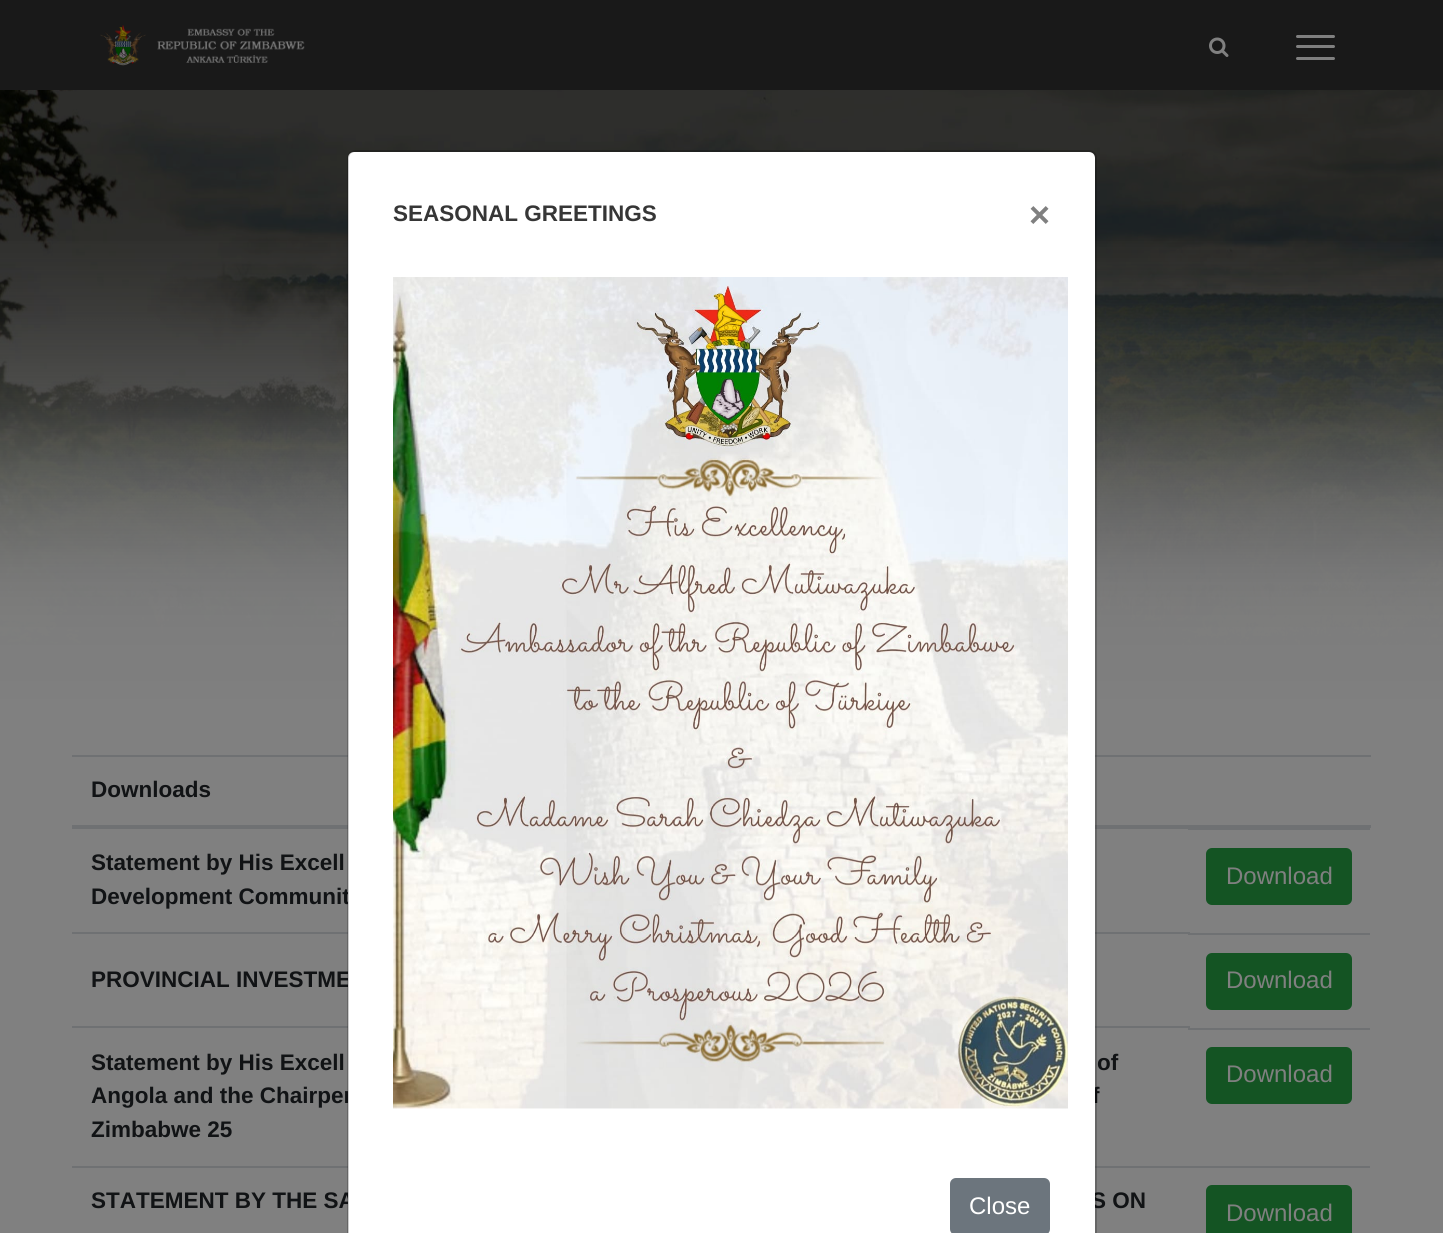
import math
import cairo

surface = cairo.ImageSurface(cairo.FORMAT_RGB24, 1443, 1233)
c = cairo.Context(surface)
options = cairo.FontOptions()
options.set_hint_metrics(cairo.HINT_METRICS_OFF)
options.set_hint_style(cairo.HINT_STYLE_NONE)
c.set_font_options(options)
c.set_miter_limit(4)
def C(code):
 c.set_source_rgb(*(v / 255 for v in bytes.fromhex(code[-6:])))
def F(family, size, italic, bold):
 c.select_font_face(family, cairo.FONT_SLANT_ITALIC if italic else cairo.FONT_SLANT_NORMAL, cairo.FONT_WEIGHT_BOLD if bold else cairo.FONT_WEIGHT_NORMAL)
 c.set_font_size(size)
def T(x, y, s):
 c.move_to(x, y)
 c.show_text(s)
def R(x, y, w, h):
 c.rectangle(x, y, w, h)
 c.fill()
def Q(x, y, w, h, r):
 c.new_sub_path()
 for i, (u, v) in enumerate([(x + w - r, y + h - r), (x + r, y + h - r), (x + r, y + r), (x + w - r, y + r)]):
  c.arc(u, v, r, i * math.pi / 2, (i + 1) * math.pi / 2)
 c.close_path()
def I(path, x, y, w, h):
 c.save()
 c.set_source_surface(cairo.ImageSurface.create_from_png(path), x, y)
 c.rectangle(x, y, w, h)
 c.fill()
 c.restore()
C('808080')
c.paint()
I('4.png',0,90,1443,609)
I('5.png',0,241,1443,491)
C('6f7173')
R(72,755,1299,2)
R(72,825,1299,3)
R(72,828,1118,1)
F('Liberation Sans',22.5,0,1)
C('111315')
T(91,904,'Development Communit')
C('6f7173')
R(72,932,1118,2)
C('111315')
T(91,987,'PROVINCIAL INVESTME')
C('6f7173')
R(72,1026,1118,2)
C('111315')
T(91,1103,'Angola and the Chairper')
T(1092,1103,'f')
C('6f7173')
R(72,1166,1298,2)
C('111315')
T(91,1208,'STATEMENT BY THE SA')
T(1091,1208,'S ON')
C('ffffff')
c.new_path()
c.move_to(354,152)
c.line_to(1089,152)
c.curve_to(1092.5,152,1095,154.5,1095,158)
c.line_to(1095,1233)
c.line_to(348,1233)
c.line_to(348,158)
c.curve_to(348,154.5,350.5,152,354,152)
c.close_path()
c.fill()
Q(348,151,748,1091,7)
c.set_source_rgba(0,0,0,0.2)
c.stroke()
C('363636')
T(393,221,'SEASONAL GREETINGS')
F('Liberation Sans',36,0,1)
C('808080')
T(1029,227,'×')
I('1.png',393,277,675,832)
C('6c757d')
Q(951,1179,98,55,5)
c.fill_preserve()
c.stroke()
F('Liberation Sans',24,0,0)
C('ffffff')
T(969,1214,'Close')
C('191919')
R(0,0,1443,90)
I('2.png',100,25,205,41)
C('808080')
Q(1296,35,39,3,1.5)
c.fill()
Q(1296,45,39,3,1.5)
c.fill()
Q(1296,57,39,3,1.5)
c.fill()
I('3.png',1209,37,20,20)
F('Liberation Sans',22.5,0,1)
C('111315')
T(91,797,'Downloads')
T(91,870,'Statement by His Excell')
C('6f7173')
R(1188,828,182,2)
C('145423')
Q(1207,849,144,55,5)
c.fill_preserve()
c.stroke()
F('Liberation Sans',24,0,0)
C('808080')
T(1226,884,'Download')
C('6f7173')
R(1188,933,182,2)
C('145423')
Q(1207,954,144,55,5)
c.fill_preserve()
c.stroke()
C('808080')
T(1226,988,'Download')
F('Liberation Sans',22.5,0,1)
C('111315')
T(91,1070,'Statement by His Excell')
T(1097,1070,'of')
T(91,1137,'Zimbabwe 25')
C('6f7173')
R(1188,1028,182,2)
C('145423')
Q(1207,1048,144,55,5)
c.fill_preserve()
c.stroke()
F('Liberation Sans',24,0,0)
C('808080')
T(1226,1082,'Download')
C('145423')
Q(1207,1186,144,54,5)
c.fill_preserve()
c.stroke()
C('808080')
T(1226,1221,'Download')
surface.write_to_png('o.png')
